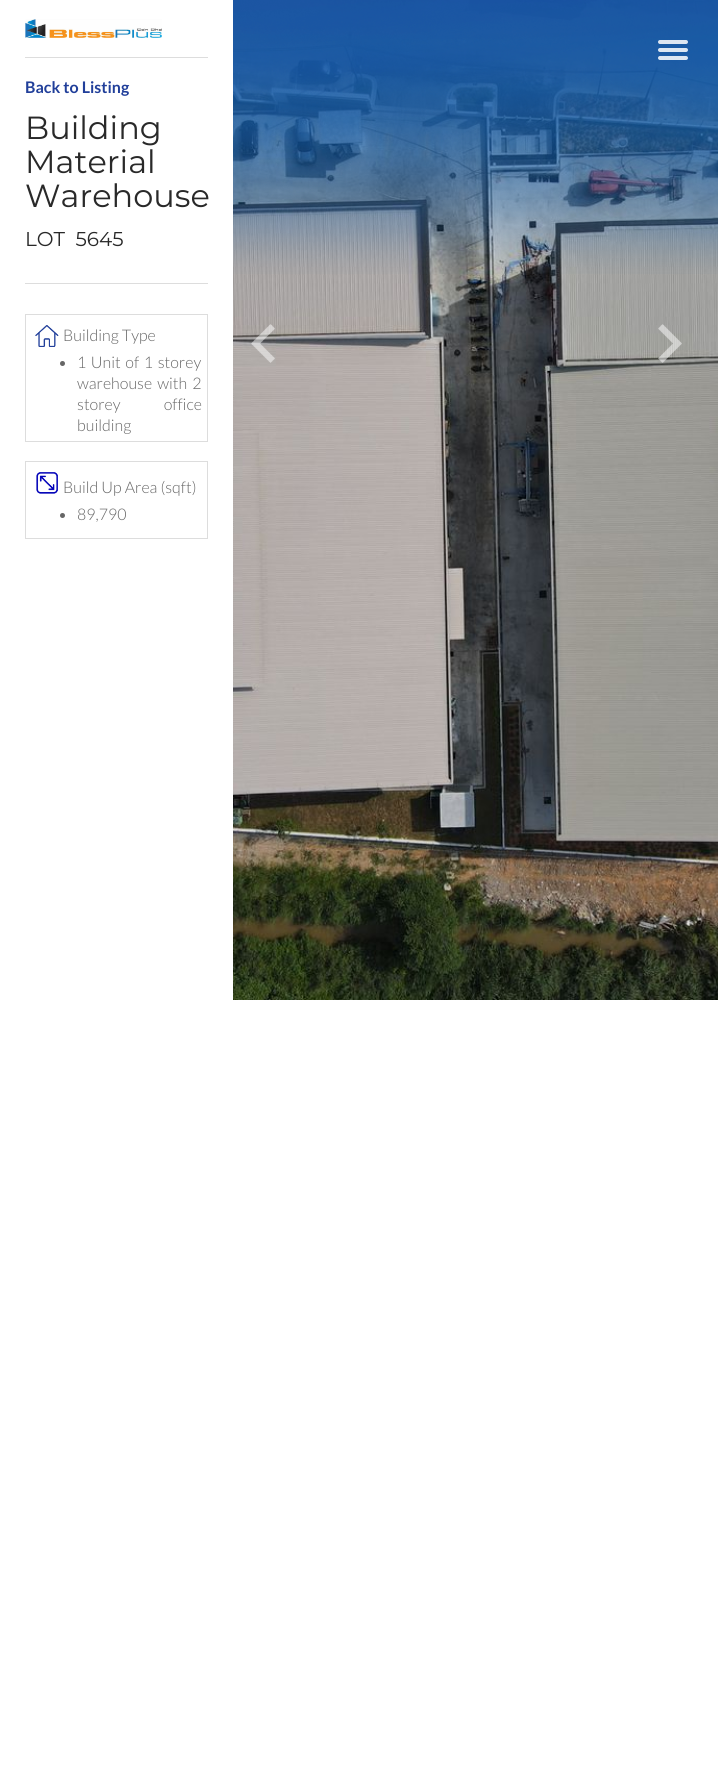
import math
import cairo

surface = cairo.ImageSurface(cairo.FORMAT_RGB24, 718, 1787)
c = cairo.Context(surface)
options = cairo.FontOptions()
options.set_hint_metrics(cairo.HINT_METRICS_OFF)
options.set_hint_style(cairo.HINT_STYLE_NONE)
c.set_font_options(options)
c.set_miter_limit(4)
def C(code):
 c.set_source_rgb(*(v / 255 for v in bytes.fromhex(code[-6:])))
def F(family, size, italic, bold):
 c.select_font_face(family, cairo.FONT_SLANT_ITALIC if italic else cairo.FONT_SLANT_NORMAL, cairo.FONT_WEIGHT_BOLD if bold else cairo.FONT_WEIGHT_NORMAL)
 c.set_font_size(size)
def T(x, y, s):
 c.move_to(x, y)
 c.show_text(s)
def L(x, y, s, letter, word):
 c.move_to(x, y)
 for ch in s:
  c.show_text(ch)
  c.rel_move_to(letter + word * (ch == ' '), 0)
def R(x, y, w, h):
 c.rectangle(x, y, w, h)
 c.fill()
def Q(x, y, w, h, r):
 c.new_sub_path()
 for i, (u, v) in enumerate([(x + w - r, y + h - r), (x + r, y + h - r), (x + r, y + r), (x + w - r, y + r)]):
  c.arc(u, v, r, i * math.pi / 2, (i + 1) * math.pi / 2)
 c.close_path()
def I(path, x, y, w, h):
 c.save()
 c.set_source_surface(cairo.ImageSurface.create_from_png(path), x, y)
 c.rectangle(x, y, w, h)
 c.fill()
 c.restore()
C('ffffff')
c.paint()
I('7.png',233,0,485,1000)
I('1.png',233,0,485,274)
C('dde6f1')
Q(658,40,30,4,2)
c.fill()
c.set_source_rgba(1,1,1,0.85)
Q(658,48,30,4,2)
c.fill()
Q(658,56,30,4,2)
c.fill()
I('2.png',25,19,137,19)
C('dddddd')
R(25,57,183,1)
F('Lato',16,0,1)
C('213f9a')
T(25,93,'Back to Listing')
F('Montserrat',32,0,0)
C('292929')
T(25,139,'Building')
T(25,173,'Material')
c.save()
c.rectangle(25,96,183,132)
c.clip()
T(25,207,'Warehouse')
c.restore()
F('Montserrat',20,0,0)
T(25,246,'LOT  5645')
C('dddddd')
R(25,283,183,1)
c.rectangle(25.5,314.5,182,127)
c.set_line_width(1)
c.stroke()
I('3.png',35,325,24,22)
F('Lato Light',16,0,0)
C('666666')
T(63,341,'Building Type')
c.new_path()
c.arc(62.5,363.5,2.5,0,2 * math.pi)
c.fill()
L(77,368,'1 Unit of 1 storey',0,1.5)
L(77,389,'warehouse with 2',0,2)
L(77,410,'storey office',0,40)
T(77,431,'building')
c.rectangle(25.5,461.5,182,77)
C('dddddd')
c.stroke()
I('4.png',36,472,22,22)
C('666666')
T(63,493,'Build Up Area (sqft)')
c.new_path()
c.arc(62.5,515.5,2.5,0,2 * math.pi)
c.fill()
T(77,520,'89,790')
I('5.png',251,324,24,39)
I('6.png',658,324,24,39)
surface.write_to_png('o.png')
